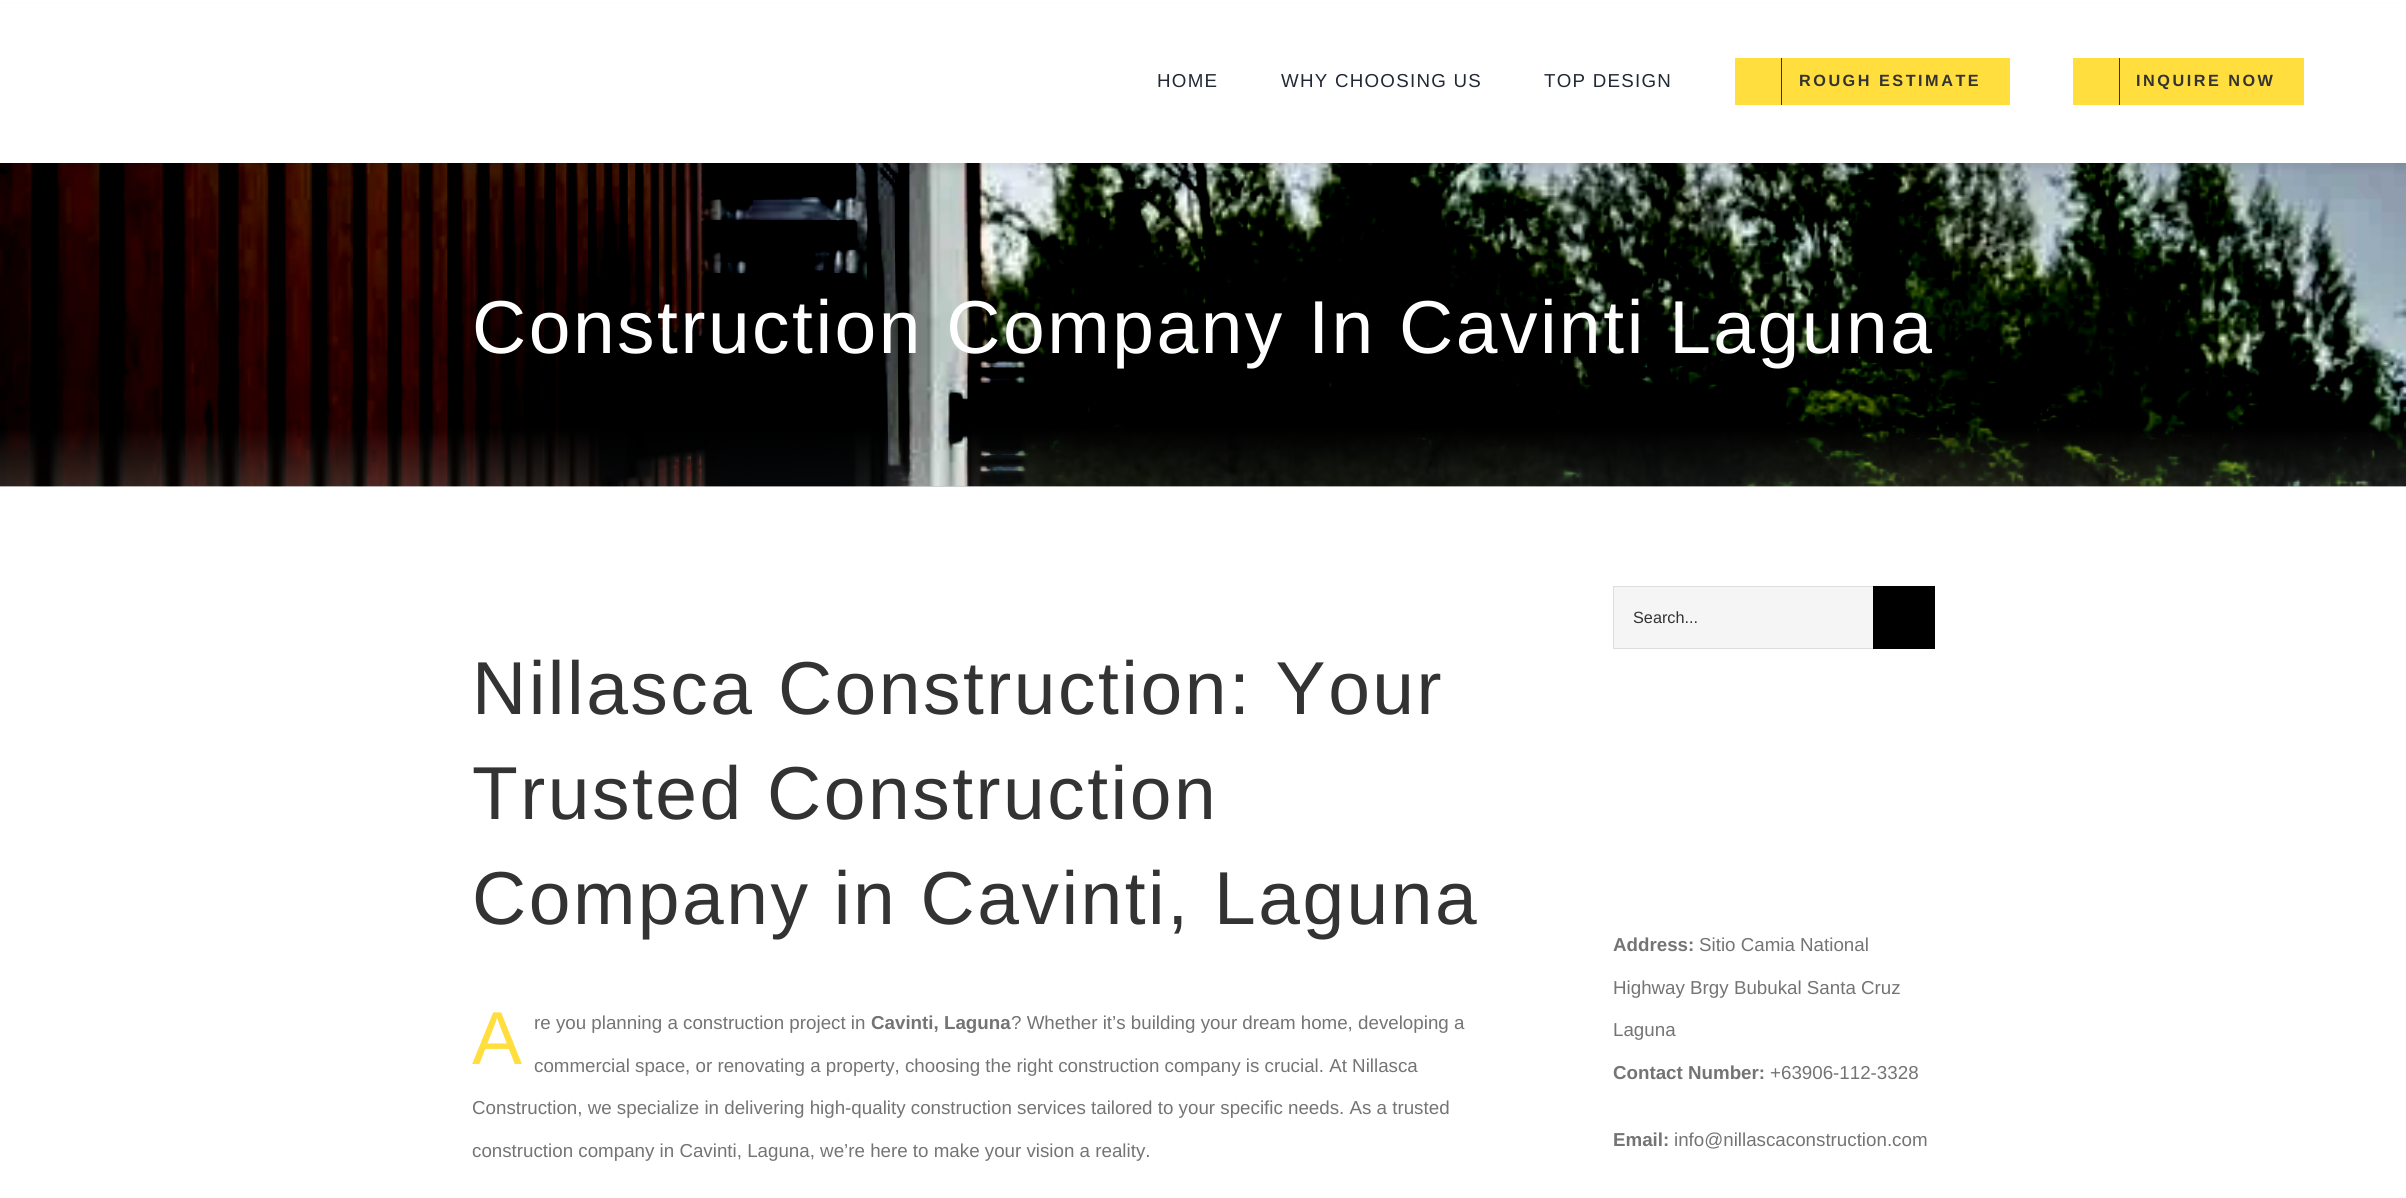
import math
import cairo

surface = cairo.ImageSurface(cairo.FORMAT_RGB24, 2406, 1198)
c = cairo.Context(surface)
options = cairo.FontOptions()
options.set_hint_metrics(cairo.HINT_METRICS_OFF)
options.set_hint_style(cairo.HINT_STYLE_NONE)
c.set_font_options(options)
c.set_miter_limit(4)
def C(code):
 c.set_source_rgb(*(v / 255 for v in bytes.fromhex(code[-6:])))
def F(family, size, italic, bold):
 c.select_font_face(family, cairo.FONT_SLANT_ITALIC if italic else cairo.FONT_SLANT_NORMAL, cairo.FONT_WEIGHT_BOLD if bold else cairo.FONT_WEIGHT_NORMAL)
 c.set_font_size(size)
def T(x, y, s):
 c.move_to(x, y)
 c.show_text(s)
def L(x, y, s, letter, word):
 c.move_to(x, y)
 for ch in s:
  c.show_text(ch)
  c.rel_move_to(letter + word * (ch == ' '), 0)
def R(x, y, w, h):
 c.rectangle(x, y, w, h)
 c.fill()
def Q(x, y, w, h, r):
 c.new_sub_path()
 for i, (u, v) in enumerate([(x + w - r, y + h - r), (x + r, y + h - r), (x + r, y + r), (x + w - r, y + r)]):
  c.arc(u, v, r, i * math.pi / 2, (i + 1) * math.pi / 2)
 c.close_path()
def S(x, y, w, h, r, blur, alpha):
 c.push_group_with_content(cairo.CONTENT_ALPHA)
 c.set_operator(cairo.OPERATOR_SOURCE)
 for i in range(15, -16, -2):
  e = blur * i / 6
  if min(w, h) + 2 * e > 0:
   c.set_source_rgba(0, 0, 0, alpha * math.erfc((i - 1) / 8.5) / 2)
   Q(x - e, y - e, w + 2 * e, h + 2 * e, max(0, min(r + e + blur * .6, min(w, h) / 2 + e)))
   c.fill()
 c.mask(c.pop_group())
def I(path, x, y, w, h):
 c.save()
 c.set_source_surface(cairo.ImageSurface.create_from_png(path), x, y)
 c.rectangle(x, y, w, h)
 c.fill()
 c.restore()
C('ffffff')
c.paint()
I('1.png',0,163,2406,324)
C('000000')
S(0,6,2406,163,0,3,.07)
C('ffffff')
R(0,3,2406,160)
F('Liberation Sans',18.75,0,0)
C('212934')
L(1157,87,'HOME',1.25,0)
L(1281,87,'WHY CHOOSING US',1.25,0)
L(1544,87,'TOP DESIGN',1.25,0)
C('ffde3d')
R(1735,58,275,47)
C('333333')
R(1781,58,1,47)
F('Liberation Sans',16.25,0,1)
L(1799,86,'ROUGH ESTIMATE',2.5,0)
C('ffde3d')
R(2073,58,231,47)
C('333333')
R(2119,58,1,47)
L(2136,86,'INQUIRE NOW',2.5,0)
F('Liberation Sans',75,0,0)
C('ffffff')
L(472,353,'Construction Company In Cavinti Laguna',2.5,0)
C('333333')
L(472,714,'Nillasca Construction: Your',2.5,0)
L(472,819,'Trusted Construction',2.5,0)
L(472,924,'Company in Cavinti, Laguna',2.5,0)
C('ffde3d')
T(472,1064,'A')
F('Liberation Sans',18.75,0,0)
C('747474')
T(534,1029,'re you planning a construction project in')
F('Liberation Sans',18.75,0,1)
T(871,1029,'Cavinti, Laguna')
F('Liberation Sans',18.75,0,0)
T(1011,1029,'? Whether it’s building your dream home, developing a')
T(534,1072,'commercial space, or renovating a property, choosing the right construction company is crucial. At Nillasca')
T(472,1114,'Construction, we specialize in delivering high-quality construction services tailored to your specific needs. As a trusted')
T(472,1157,'construction company in Cavinti, Laguna, we’re here to make your vision a reality.')
C('f5f5f5')
R(1614,587,259,61)
C('dddddd')
R(1613,586,260,1)
R(1613,648,260,1)
R(1613,586,1,63)
F('Liberation Sans',16.25,0,0)
C('333333')
T(1633,623,'Search...')
C('000000')
R(1873,586,62,63)
F('Liberation Sans',18.75,0,1)
C('747474')
T(1613,951,'Address:')
F('Liberation Sans',18.75,0,0)
T(1699,951,'Sitio Camia National')
T(1613,994,'Highway Brgy Bubukal Santa Cruz')
T(1613,1036,'Laguna')
F('Liberation Sans',18.75,0,1)
T(1613,1079,'Contact Number:')
F('Liberation Sans',18.75,0,0)
T(1770,1079,'+63906-112-3328')
F('Liberation Sans',18.75,0,1)
T(1613,1146,'Email:')
F('Liberation Sans',18.75,0,0)
T(1674,1146,'info@nillascaconstruction.com')
surface.write_to_png('o.png')
